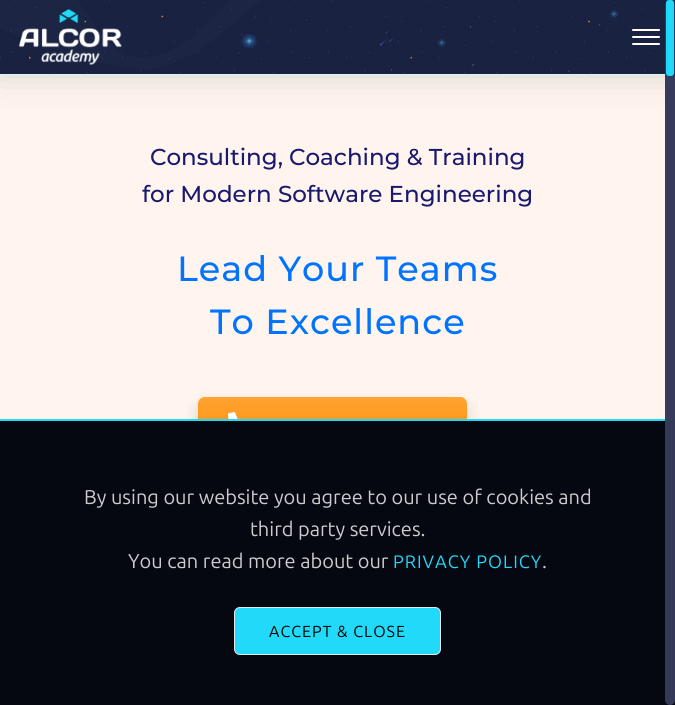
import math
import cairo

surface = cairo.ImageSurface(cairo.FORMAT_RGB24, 675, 705)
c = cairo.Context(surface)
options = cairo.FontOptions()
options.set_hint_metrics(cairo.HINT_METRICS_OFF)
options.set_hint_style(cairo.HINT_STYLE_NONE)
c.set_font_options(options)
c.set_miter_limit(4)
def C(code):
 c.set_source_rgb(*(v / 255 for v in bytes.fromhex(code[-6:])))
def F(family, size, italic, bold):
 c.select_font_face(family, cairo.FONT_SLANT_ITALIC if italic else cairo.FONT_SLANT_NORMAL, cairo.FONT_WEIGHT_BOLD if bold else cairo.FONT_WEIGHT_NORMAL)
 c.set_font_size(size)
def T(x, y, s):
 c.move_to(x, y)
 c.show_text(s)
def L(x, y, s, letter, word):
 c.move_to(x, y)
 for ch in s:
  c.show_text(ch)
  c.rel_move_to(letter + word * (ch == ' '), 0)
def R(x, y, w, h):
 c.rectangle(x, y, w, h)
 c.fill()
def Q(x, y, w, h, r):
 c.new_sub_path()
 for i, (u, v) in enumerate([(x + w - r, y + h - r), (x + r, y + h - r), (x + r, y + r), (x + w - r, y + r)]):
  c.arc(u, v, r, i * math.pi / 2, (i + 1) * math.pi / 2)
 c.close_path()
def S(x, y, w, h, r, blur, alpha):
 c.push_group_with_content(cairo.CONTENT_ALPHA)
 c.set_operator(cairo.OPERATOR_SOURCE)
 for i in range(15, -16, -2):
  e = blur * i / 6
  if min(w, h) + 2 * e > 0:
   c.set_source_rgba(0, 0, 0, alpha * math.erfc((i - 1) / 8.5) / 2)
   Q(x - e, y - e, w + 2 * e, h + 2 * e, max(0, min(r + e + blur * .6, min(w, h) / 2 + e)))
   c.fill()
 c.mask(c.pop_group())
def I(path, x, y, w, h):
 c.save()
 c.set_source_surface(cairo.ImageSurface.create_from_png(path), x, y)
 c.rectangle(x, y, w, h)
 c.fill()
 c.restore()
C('fff5ee')
c.paint()
C('16191c')
S(0,0,675,75,0,18,.17)
I('1.png',0,0,675,74)
C('cbfeff')
R(0,74,675,1)
I('2.png',18,9,104,56)
C('ffffff')
Q(632,36,28,2,1)
c.fill()
Q(632,29,28,2,1)
c.fill()
Q(632,43,28,2,1)
c.fill()
F('Montserrat Medium',23,0,0)
C('191970')
T(150,165,'Consulting, Coaching & Training')
T(142,202,'for Modern Software Engineering')
F('Montserrat Medium',35,0,0)
C('0073ff')
L(177,281,'Lead Your Teams',1,0)
L(210,334,'To Excellence',1,0)
C('000000')
S(198,405,269,54,7,8,.15)
C('ff8c00')
Q(198,397,269,54,7)
c.fill()
gradient = cairo.LinearGradient(333,397,333,451)
gradient.add_color_stop_rgba(0,1,1,1,.2)
gradient.add_color_stop_rgba(1,1,1,1,.01)
c.set_source(gradient)
Q(198,397,269,54,7)
c.fill()
I('3.png',228,412,10,7)
C('050711')
R(0,421,675,284)
C('21dafa')
R(0,419,675,2)
c.set_source_rgba(0.208,0.224,0.353,0.99)
Q(665,0,10,705,5)
c.fill()
c.set_source_rgba(0.129,0.855,0.98,0.99)
Q(666,0,8,76,3)
c.fill()
F('Ubuntu',20,0,0)
C('cdcdcf')
T(84,504,'By using our website you agree to our use of cookies and')
T(250,536,'third party services.')
T(128,568,'You can read more about our')
F('Ubuntu',18,0,0)
C('21dafa')
L(393,568,'PRIVACY POLICY',1,0)
F('Ubuntu',20,0,0)
C('cdcdcf')
T(542,568,'.')
C('21dafa')
Q(234.5,607.5,206,47,5.5)
c.fill_preserve()
C('e5e8eb')
c.set_line_width(1)
c.stroke()
F('Ubuntu',16,0,0)
C('000000')
L(269,637,'ACCEPT & CLOSE',1,0)
surface.write_to_png('o.png')
